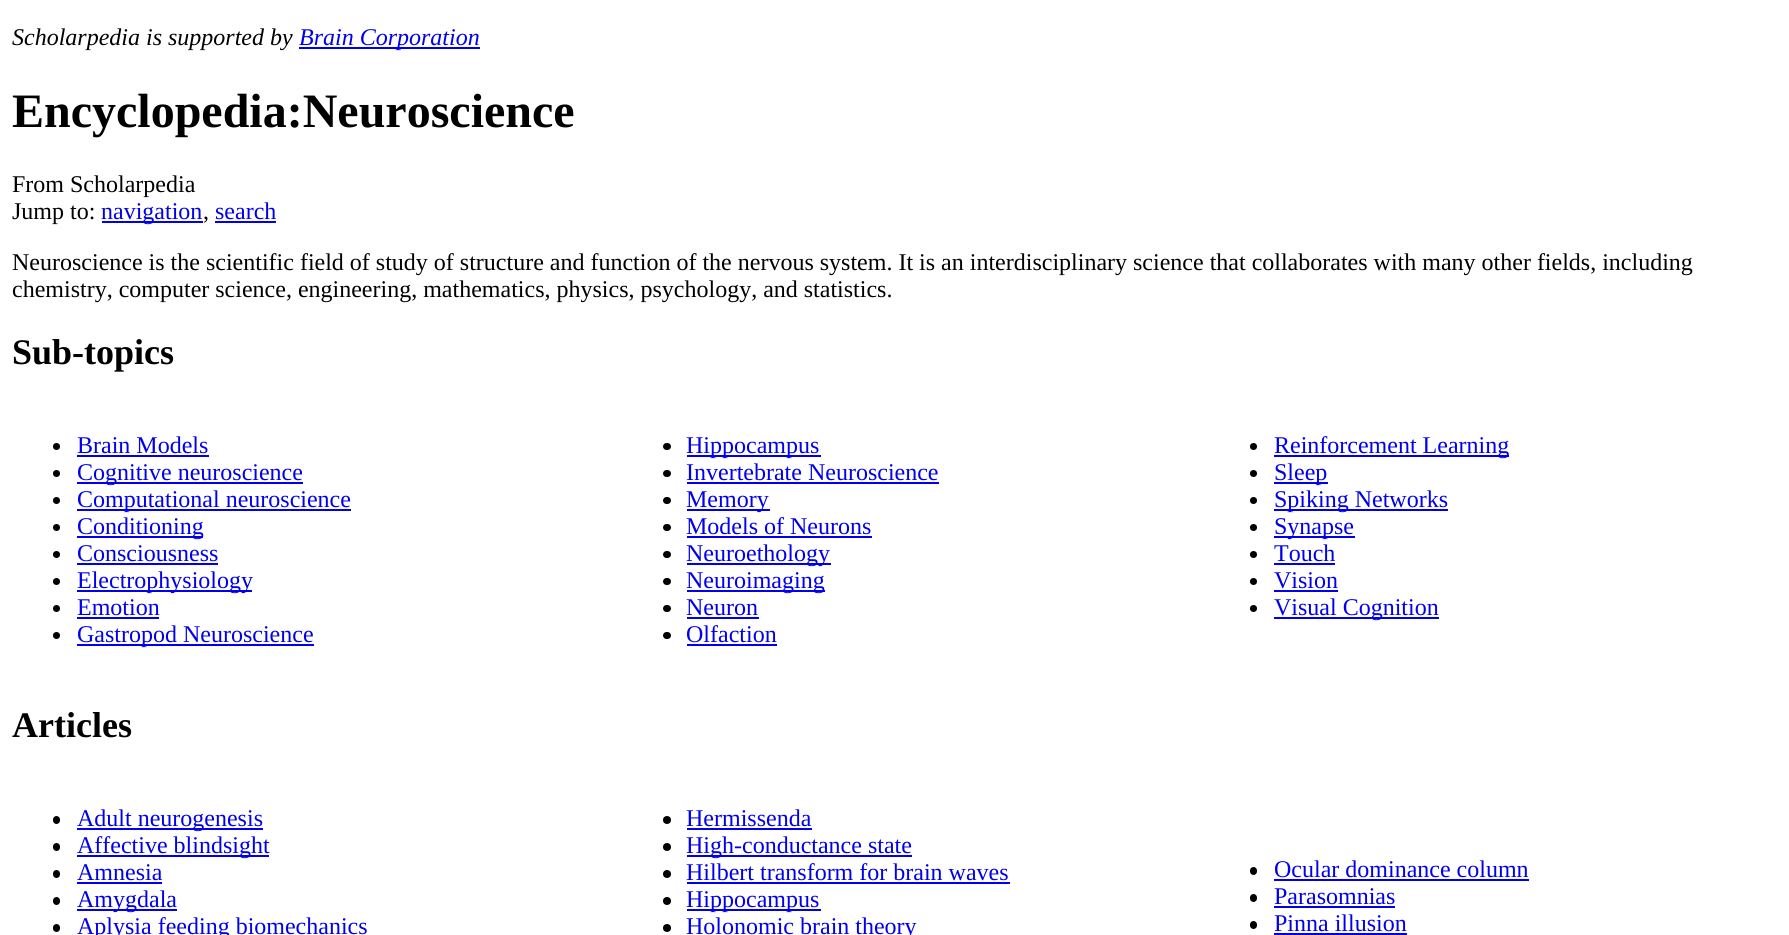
import math
import cairo

surface = cairo.ImageSurface(cairo.FORMAT_RGB24, 1789, 935)
c = cairo.Context(surface)
options = cairo.FontOptions()
options.set_hint_metrics(cairo.HINT_METRICS_OFF)
options.set_hint_style(cairo.HINT_STYLE_NONE)
c.set_font_options(options)
c.set_miter_limit(4)
def C(code):
 c.set_source_rgb(*(v / 255 for v in bytes.fromhex(code[-6:])))
def F(family, size, italic, bold):
 c.select_font_face(family, cairo.FONT_SLANT_ITALIC if italic else cairo.FONT_SLANT_NORMAL, cairo.FONT_WEIGHT_BOLD if bold else cairo.FONT_WEIGHT_NORMAL)
 c.set_font_size(size)
def T(x, y, s):
 c.move_to(x, y)
 c.show_text(s)
def R(x, y, w, h):
 c.rectangle(x, y, w, h)
 c.fill()
def Q(x, y, w, h, r):
 c.new_sub_path()
 for i, (u, v) in enumerate([(x + w - r, y + h - r), (x + r, y + h - r), (x + r, y + r), (x + w - r, y + r)]):
  c.arc(u, v, r, i * math.pi / 2, (i + 1) * math.pi / 2)
 c.close_path()
C('ffffff')
c.paint()
F('Liberation Serif',24,1,0)
C('000000')
T(12,45,'Scholarpedia is supported by')
C('0000ee')
R(299,47,181,2)
T(299,45,'Brain Corporation')
F('Liberation Serif',48,0,1)
C('000000')
T(12,127,'Encyclopedia:Neuroscience')
F('Liberation Serif',24,0,0)
T(12,192,'From Scholarpedia')
T(12,219,'Jump to:')
C('0000ee')
R(102,221,101,2)
T(101,219,'navigation')
C('000000')
T(203,219,',')
C('0000ee')
T(215,219,'search')
R(215,221,61,2)
C('000000')
T(12,270,'Neuroscience is the scientific field of study of structure and function of the nervous system. It is an interdisciplinary science that collaborates with many other fields, including')
T(12,297,'chemistry, computer science, engineering, mathematics, physics, psychology, and statistics.')
F('Liberation Serif',36,0,1)
T(12,364,'Sub-topics')
c.new_path()
c.arc(56.5,446.5,3.5,0,2 * math.pi)
c.fill()
F('Liberation Serif',24,0,0)
C('0000ee')
T(77,453,'Brain Models')
R(77,455,132,2)
C('000000')
c.new_path()
c.arc(56.5,473.5,3.5,0,2 * math.pi)
c.fill()
C('0000ee')
R(77,482,226,2)
T(77,480,'Cognitive neuroscience')
C('000000')
c.new_path()
c.arc(56.5,500.5,3.5,0,2 * math.pi)
c.fill()
C('0000ee')
R(77,509,274,2)
T(77,507,'Computational neuroscience')
C('000000')
c.new_path()
c.arc(56.5,527.5,3.5,0,2 * math.pi)
c.fill()
C('0000ee')
R(77,536,126,2)
T(77,534,'Conditioning')
C('000000')
c.new_path()
c.arc(56.5,554.5,3.5,0,2 * math.pi)
c.fill()
C('0000ee')
T(77,561,'Consciousness')
R(77,563,141,2)
C('000000')
c.new_path()
c.arc(56.5,581.5,3.5,0,2 * math.pi)
c.fill()
C('0000ee')
R(77,590,175,2)
T(77,588,'Electrophysiology')
C('000000')
c.new_path()
c.arc(56.5,608.5,3.5,0,2 * math.pi)
c.fill()
C('0000ee')
T(77,615,'Emotion')
R(77,617,82,2)
C('000000')
c.new_path()
c.arc(56.5,635.5,3.5,0,2 * math.pi)
c.fill()
C('0000ee')
R(77,644,237,2)
T(77,642,'Gastropod Neuroscience')
C('000000')
Q(663,443,8,7,3.5)
c.fill()
C('0000ee')
R(687,455,134,2)
T(686,453,'Hippocampus')
C('000000')
Q(663,470,8,7,3.5)
c.fill()
C('0000ee')
T(686,480,'Invertebrate Neuroscience')
R(687,482,252,2)
C('000000')
Q(663,497,8,7,3.5)
c.fill()
C('0000ee')
R(687,509,83,2)
T(686,507,'Memory')
C('000000')
Q(663,524,8,7,3.5)
c.fill()
C('0000ee')
T(686,534,'Models of Neurons')
R(687,536,185,2)
C('000000')
Q(663,551,8,7,3.5)
c.fill()
C('0000ee')
R(687,563,144,2)
T(686,561,'Neuroethology')
C('000000')
Q(663,578,8,7,3.5)
c.fill()
C('0000ee')
R(687,590,138,2)
T(686,588,'Neuroimaging')
C('000000')
Q(663,605,8,7,3.5)
c.fill()
C('0000ee')
T(686,615,'Neuron')
R(687,617,72,2)
C('000000')
Q(663,632,8,7,3.5)
c.fill()
C('0000ee')
T(686,642,'Olfaction')
R(687,644,90,2)
C('000000')
c.new_path()
c.arc(1253.5,446.5,3.5,0,2 * math.pi)
c.fill()
C('0000ee')
R(1274,455,235,2)
T(1274,453,'Reinforcement Learning')
C('000000')
c.new_path()
c.arc(1253.5,473.5,3.5,0,2 * math.pi)
c.fill()
C('0000ee')
R(1274,482,54,2)
T(1274,480,'Sleep')
C('000000')
c.new_path()
c.arc(1253.5,500.5,3.5,0,2 * math.pi)
c.fill()
C('0000ee')
R(1274,509,174,2)
T(1274,507,'Spiking Networks')
C('000000')
c.new_path()
c.arc(1253.5,527.5,3.5,0,2 * math.pi)
c.fill()
C('0000ee')
R(1274,536,81,2)
T(1274,534,'Synapse')
C('000000')
c.new_path()
c.arc(1253.5,554.5,3.5,0,2 * math.pi)
c.fill()
C('0000ee')
T(1274,561,'Touch')
R(1274,563,61,2)
C('000000')
c.new_path()
c.arc(1253.5,581.5,3.5,0,2 * math.pi)
c.fill()
C('0000ee')
T(1274,588,'Vision')
R(1274,590,64,2)
C('000000')
c.new_path()
c.arc(1253.5,608.5,3.5,0,2 * math.pi)
c.fill()
C('0000ee')
R(1274,617,165,2)
T(1274,615,'Visual Cognition')
F('Liberation Serif',36,0,1)
C('000000')
T(12,737,'Articles')
Q(53,816,7,8,3.5)
c.fill()
C('0000ee')
R(77,828,186,2)
F('Liberation Serif',24,0,0)
T(77,826,'Adult neurogenesis')
C('000000')
Q(53,843,7,8,3.5)
c.fill()
C('0000ee')
R(77,855,192,2)
T(77,853,'Affective blindsight')
C('000000')
Q(53,870,7,8,3.5)
c.fill()
C('0000ee')
T(77,880,'Amnesia')
R(77,882,85,2)
C('000000')
Q(53,897,7,8,3.5)
c.fill()
C('0000ee')
R(77,909,100,2)
T(77,907,'Amygdala')
C('000000')
Q(53,924,7,8,3.5)
c.fill()
C('0000ee')
T(77,934,'Aplysia feeding biomechanics')
C('000000')
c.new_path()
c.arc(667,820,4,0,2 * math.pi)
c.fill()
C('0000ee')
T(686,826,'Hermissenda')
R(687,828,125,2)
C('000000')
c.new_path()
c.arc(667,847,4,0,2 * math.pi)
c.fill()
C('0000ee')
R(687,855,225,2)
T(686,853,'High-conductance state')
C('000000')
c.new_path()
c.arc(667,874,4,0,2 * math.pi)
c.fill()
C('0000ee')
T(686,880,'Hilbert transform for brain waves')
R(687,882,323,2)
C('000000')
c.new_path()
c.arc(667,901,4,0,2 * math.pi)
c.fill()
C('0000ee')
R(687,909,134,2)
T(686,907,'Hippocampus')
C('000000')
c.new_path()
c.arc(667,928,4,0,2 * math.pi)
c.fill()
C('0000ee')
T(686,934,'Holonomic brain theory')
C('000000')
Q(1250,867,7,8,3.5)
c.fill()
C('0000ee')
T(1274,877,'Ocular dominance column')
R(1274,879,255,2)
C('000000')
Q(1250,894,7,8,3.5)
c.fill()
C('0000ee')
T(1274,904,'Parasomnias')
R(1274,906,121,2)
C('000000')
Q(1250,921,7,8,3.5)
c.fill()
C('0000ee')
T(1274,931,'Pinna illusion')
R(1274,933,133,2)
surface.write_to_png('o.png')
